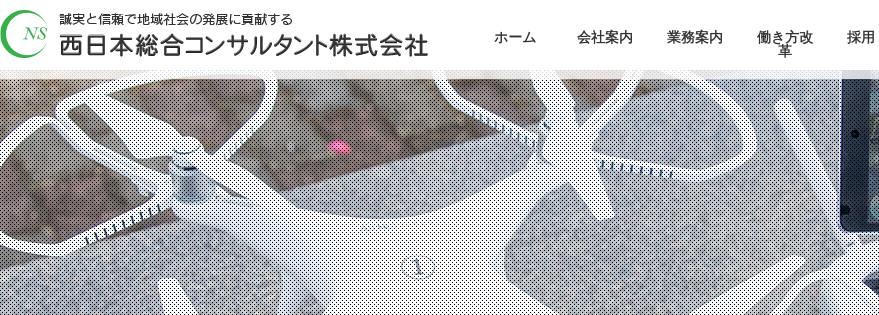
import math
import cairo

surface = cairo.ImageSurface(cairo.FORMAT_RGB24, 879, 315)
c = cairo.Context(surface)
options = cairo.FontOptions()
options.set_hint_metrics(cairo.HINT_METRICS_OFF)
options.set_hint_style(cairo.HINT_STYLE_NONE)
c.set_font_options(options)
c.set_miter_limit(4)
def C(code):
 c.set_source_rgb(*(v / 255 for v in bytes.fromhex(code[-6:])))
def F(family, size, italic, bold):
 c.select_font_face(family, cairo.FONT_SLANT_ITALIC if italic else cairo.FONT_SLANT_NORMAL, cairo.FONT_WEIGHT_BOLD if bold else cairo.FONT_WEIGHT_NORMAL)
 c.set_font_size(size)
def T(x, y, s):
 c.move_to(x, y)
 c.show_text(s)
def R(x, y, w, h):
 c.rectangle(x, y, w, h)
 c.fill()
def I(path, x, y, w, h):
 c.save()
 c.set_source_surface(cairo.ImageSurface.create_from_png(path), x, y)
 c.rectangle(x, y, w, h)
 c.fill()
 c.restore()
C('ffffff')
c.paint()
I('2.png',0,70,879,245)
I('3.png',0,70,879,245)
c.set_source_rgba(1,1,1,0.8)
R(0,70,879,9)
I('1.png',0,10,428,48)
F('WenQuanYi Zen Hei',14,0,1)
C('333333')
T(494,42,'ホーム')
T(577,42,'会社案内')
T(667,42,'業務案内')
T(757,42,'働き方改')
T(778,56,'革')
T(847,42,'採用')
surface.write_to_png('o.png')
